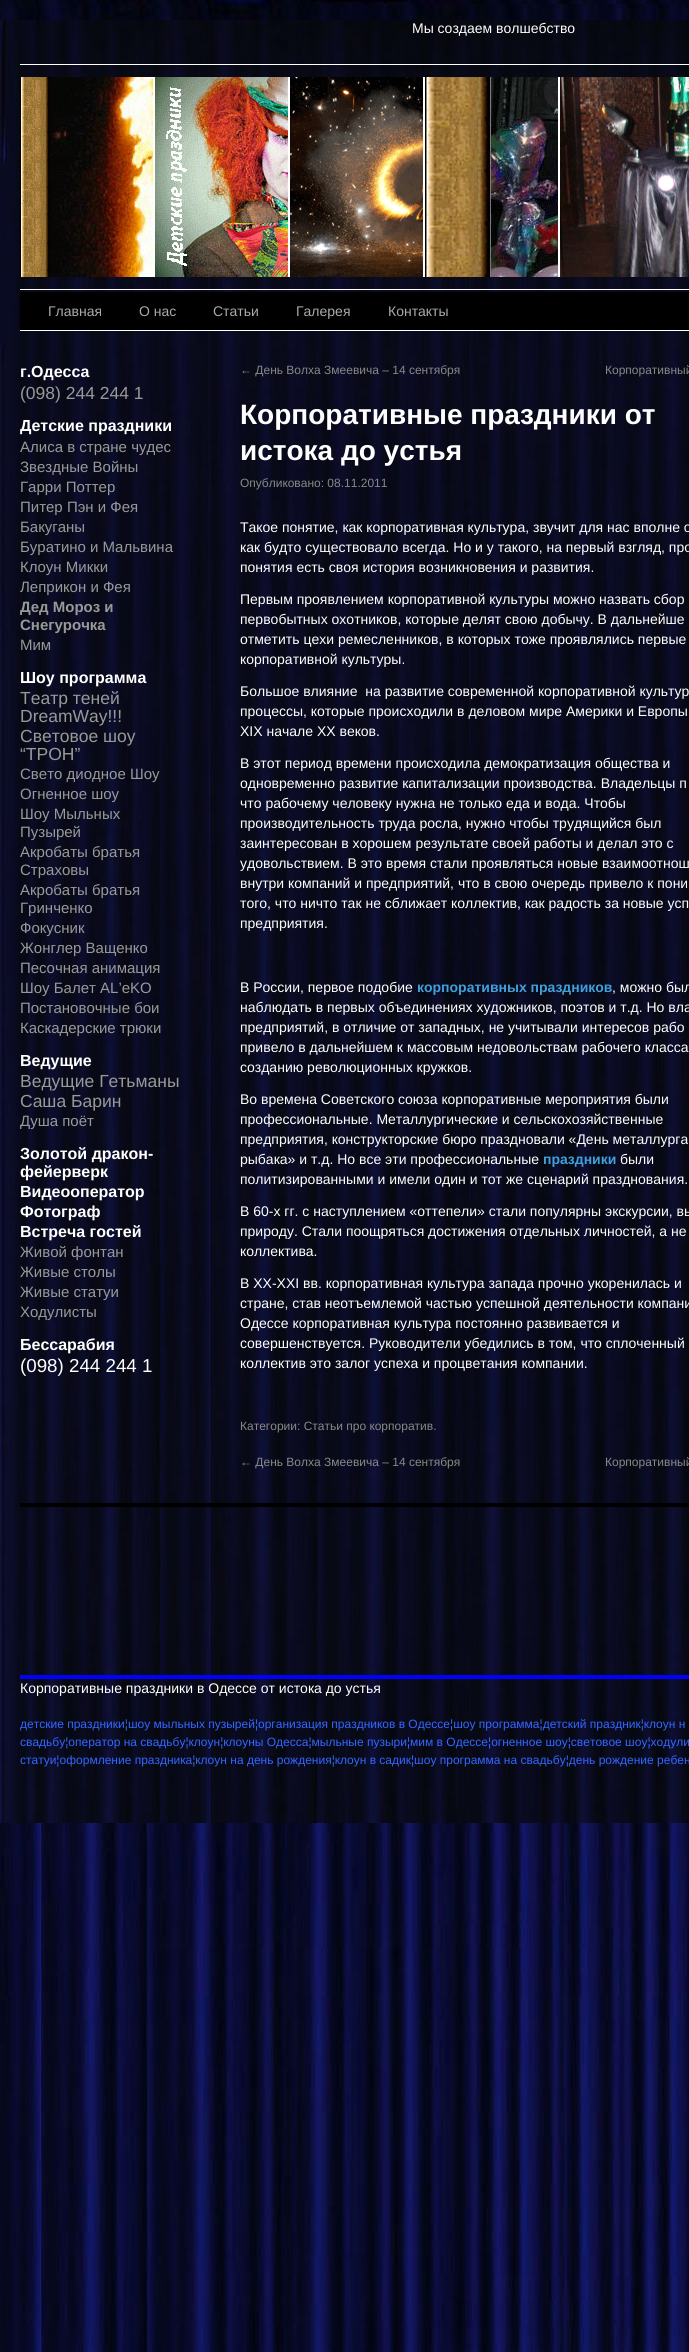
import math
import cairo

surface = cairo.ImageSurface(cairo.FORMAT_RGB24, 689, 2352)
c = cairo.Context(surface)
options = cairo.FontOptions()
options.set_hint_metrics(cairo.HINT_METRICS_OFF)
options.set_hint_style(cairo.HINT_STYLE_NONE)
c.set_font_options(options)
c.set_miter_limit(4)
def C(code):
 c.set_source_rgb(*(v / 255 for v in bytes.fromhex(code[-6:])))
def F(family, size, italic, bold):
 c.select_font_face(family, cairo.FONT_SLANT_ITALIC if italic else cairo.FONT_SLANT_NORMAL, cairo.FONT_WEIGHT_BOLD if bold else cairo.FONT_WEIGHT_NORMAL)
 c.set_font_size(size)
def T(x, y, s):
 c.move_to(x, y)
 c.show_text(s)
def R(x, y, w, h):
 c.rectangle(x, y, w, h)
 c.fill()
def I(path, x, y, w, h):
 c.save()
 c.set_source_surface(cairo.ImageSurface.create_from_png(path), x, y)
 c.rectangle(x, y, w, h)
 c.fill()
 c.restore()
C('ffffff')
c.paint()
I('1.png',0,0,689,2352)
I('2.png',0,20,689,1803)
F('Liberation Sans',14,0,0)
C('ffffff')
T(412,33,'Мы создаем волшебство')
R(20,64,669,1)
R(20,289,669,1)
I('3.png',20,77,133,200)
R(153,77,2,200)
I('4.png',155,77,133,200)
R(288,77,2,200)
I('5.png',290,77,133,200)
R(423,77,2,200)
I('6.png',425,77,133,200)
R(558,77,2,200)
I('7.png',560,77,129,200)
C('000000')
R(20,292,669,38)
C('ffffff')
R(20,330,669,1)
C('aaaaaa')
T(48,316,'Главная')
T(139,316,'О нас')
T(213,316,'Статьи')
T(296,316,'Галерея')
T(388,316,'Контакты')
F('Liberation Sans',16,0,1)
C('ffffff')
T(20,377,'г.Одесса')
F('Liberation Sans',17.5,0,0)
C('999999')
T(20,399,'(098) 244 244 1')
F('Liberation Sans',16,0,1)
C('ffffff')
T(20,431,'Детские праздники')
F('Liberation Sans',15,0,0)
C('999999')
T(20,452,'Алиса в стране чудес')
T(20,472,'Звездные Войны')
T(20,492,'Гарри Поттер')
T(20,512,'Питер Пэн и Фея')
T(20,532,'Бакуганы')
T(20,552,'Буратино и Мальвина')
T(20,572,'Клоун Микки')
T(20,592,'Леприкон и Фея')
F('Liberation Sans',15,0,1)
T(20,612,'Дед Мороз и')
T(20,630,'Снегурочка')
F('Liberation Sans',15,0,0)
T(20,650,'Мим')
F('Liberation Sans',16,0,1)
C('ffffff')
T(20,683,'Шоу программа')
F('Liberation Sans',17.5,0,0)
C('999999')
T(20,704,'Театр теней')
T(20,722,'DreamWay!!!')
T(20,742,'Световое шоу')
T(20,760,'“ТРОН”')
F('Liberation Sans',15,0,0)
T(20,779,'Свето диодное Шоу')
T(20,799,'Огненное шоу')
T(20,819,'Шоу Мыльных')
T(20,837,'Пузырей')
T(20,857,'Акробаты братья')
T(20,875,'Страховы')
T(20,895,'Акробаты братья')
T(20,913,'Гринченко')
T(20,933,'Фокусник')
T(20,953,'Жонглер Ващенко')
T(20,973,'Песочная анимация')
T(20,993,'Шоу Балет AL’eKO')
T(20,1013,'Постановочные бои')
T(20,1033,'Каскадерские трюки')
F('Liberation Sans',16,0,1)
C('ffffff')
T(20,1066,'Ведущие')
F('Liberation Sans',17.5,0,0)
C('999999')
T(20,1087,'Ведущие Гетьманы')
T(20,1107,'Саша Барин')
F('Liberation Sans',15,0,0)
T(20,1126,'Душа поёт')
F('Liberation Sans',16,0,1)
C('ffffff')
T(20,1159,'Золотой дракон-')
T(20,1177,'фейерверк')
T(20,1197,'Видеооператор')
T(20,1217,'Фотограф')
T(20,1237,'Встреча гостей')
F('Liberation Sans',15,0,0)
C('999999')
T(20,1257,'Живой фонтан')
T(20,1277,'Живые столы')
T(20,1297,'Живые статуи')
T(20,1317,'Ходулисты')
F('Liberation Sans',16,0,1)
C('ffffff')
T(20,1350,'Бессарабия')
F('Liberation Sans',18.75,0,0)
T(20,1372,'(098) 244 244 1')
F('Liberation Sans',12,0,0)
C('888888')
T(240,374,'← День Волха Змеевича – 14 сентября')
T(605,374,'Корпоративный')
F('Liberation Sans',28,0,1)
C('ffffff')
T(240,424,'Корпоративные праздники от')
T(240,460,'истока до устья')
F('Liberation Sans',12,0,0)
C('888888')
T(240,487,'Опубликовано: 08.11.2011')
F('Liberation Sans',14,0,0)
C('ffffff')
T(240,532,'Такое понятие, как корпоративная культура, звучит для нас вполне о')
T(240,552,'как будто существовало всегда. Но и у такого, на первый взгляд, про')
T(240,572,'понятия есть своя история возникновения и развития.')
T(240,604,'Первым проявлением корпоративной культуры можно назвать сбор')
T(240,624,'первобытных охотников, которые делят свою добычу. В дальнейше')
T(240,644,'отметить цехи ремесленников, в которых тоже проявлялись первые')
T(240,664,'корпоративной культуры.')
T(240,696,'Большое влияние  на развитие современной корпоративной культур')
T(240,716,'процессы, которые происходили в деловом мире Америки и Европы')
T(240,736,'XIX начале XX веков.')
T(240,768,'В этот период времени происходила демократизация общества и')
T(240,788,'одновременно развитие капитализации производства. Владельцы п')
T(240,808,'что рабочему человеку нужна не только еда и вода. Чтобы')
T(240,828,'производительность труда росла, нужно чтобы трудящийся был')
T(240,848,'заинтересован в хорошем результате своей работы и делал это с')
T(240,868,'удовольствием. В это время стали проявляться новые взаимоотнош')
T(240,888,'внутри компаний и предприятий, что в свою очередь привело к пони')
T(240,908,'того, что ничто так не сближает коллектив, как радость за новые усп')
T(240,928,'предприятия.')
T(240,992,'В России, первое подобие')
F('Liberation Sans',14,0,1)
C('3fa0dc')
T(417,992,'корпоративных праздников')
F('Liberation Sans',14,0,0)
C('ffffff')
T(612,992,', можно был')
T(240,1012,'наблюдать в первых объединениях художников, поэтов и т.д. Но вла')
T(240,1032,'предприятий, в отличие от западных, не учитывали интересов рабо')
T(240,1052,'привело в дальнейшем к массовым недовольствам рабочего класса')
T(240,1072,'созданию революционных кружков.')
T(240,1104,'Во времена Советского союза корпоративные мероприятия были')
T(240,1124,'профессиональные. Металлургические и сельскохозяйственные')
T(240,1144,'предприятия, конструкторские бюро праздновали «День металлурга')
T(240,1164,'рыбака» и т.д. Но все эти профессиональные')
F('Liberation Sans',14,0,1)
C('3fa0dc')
T(543,1164,'праздники')
F('Liberation Sans',14,0,0)
C('ffffff')
T(620,1164,'были')
T(240,1184,'политизированными и имели один и тот же сценарий празднования.')
T(240,1216,'В 60-х гг. с наступлением «оттепели» стали популярны экскурсии, вы')
T(240,1236,'природу. Стали поощряться достижения отдельных личностей, а не')
T(240,1256,'коллектива.')
T(240,1288,'В XX-XXI вв. корпоративная культура запада прочно укоренилась и')
T(240,1308,'стране, став неотъемлемой частью успешной деятельности компани')
T(240,1328,'Одессе корпоративная культура постоянно развивается и')
T(240,1348,'совершенствуется. Руководители убедились в том, что сплоченный')
T(240,1368,'коллектив это залог успеха и процветания компании.')
F('Liberation Sans',12,0,0)
C('888888')
T(240,1430,'Категории: Статьи про корпоратив.')
T(240,1466,'← День Волха Змеевича – 14 сентября')
T(605,1466,'Корпоративный')
C('000000')
R(20,1503,669,4)
C('0000ff')
R(20,1675,669,4)
F('Liberation Sans',14,0,0)
C('ffffff')
T(20,1693,'Корпоративные праздники в Одессе от истока до устья')
F('Liberation Sans',12,0,0)
C('3366ff')
T(20,1728,'детские праздники¦шоу мыльных пузырей¦организация праздников в Одессе¦шоу программа¦детский праздник¦клоун н')
T(20,1746,'свадьбу¦оператор на свадьбу¦клоун¦клоуны Одесса¦мыльные пузыри¦мим в Одессе¦огненное шоу¦световое шоу¦ходули')
T(20,1764,'статуи¦оформление праздника¦клоун на день рождения¦клоун в садик¦шоу программа на свадьбу¦день рождение ребен')
surface.write_to_png('o.png')
